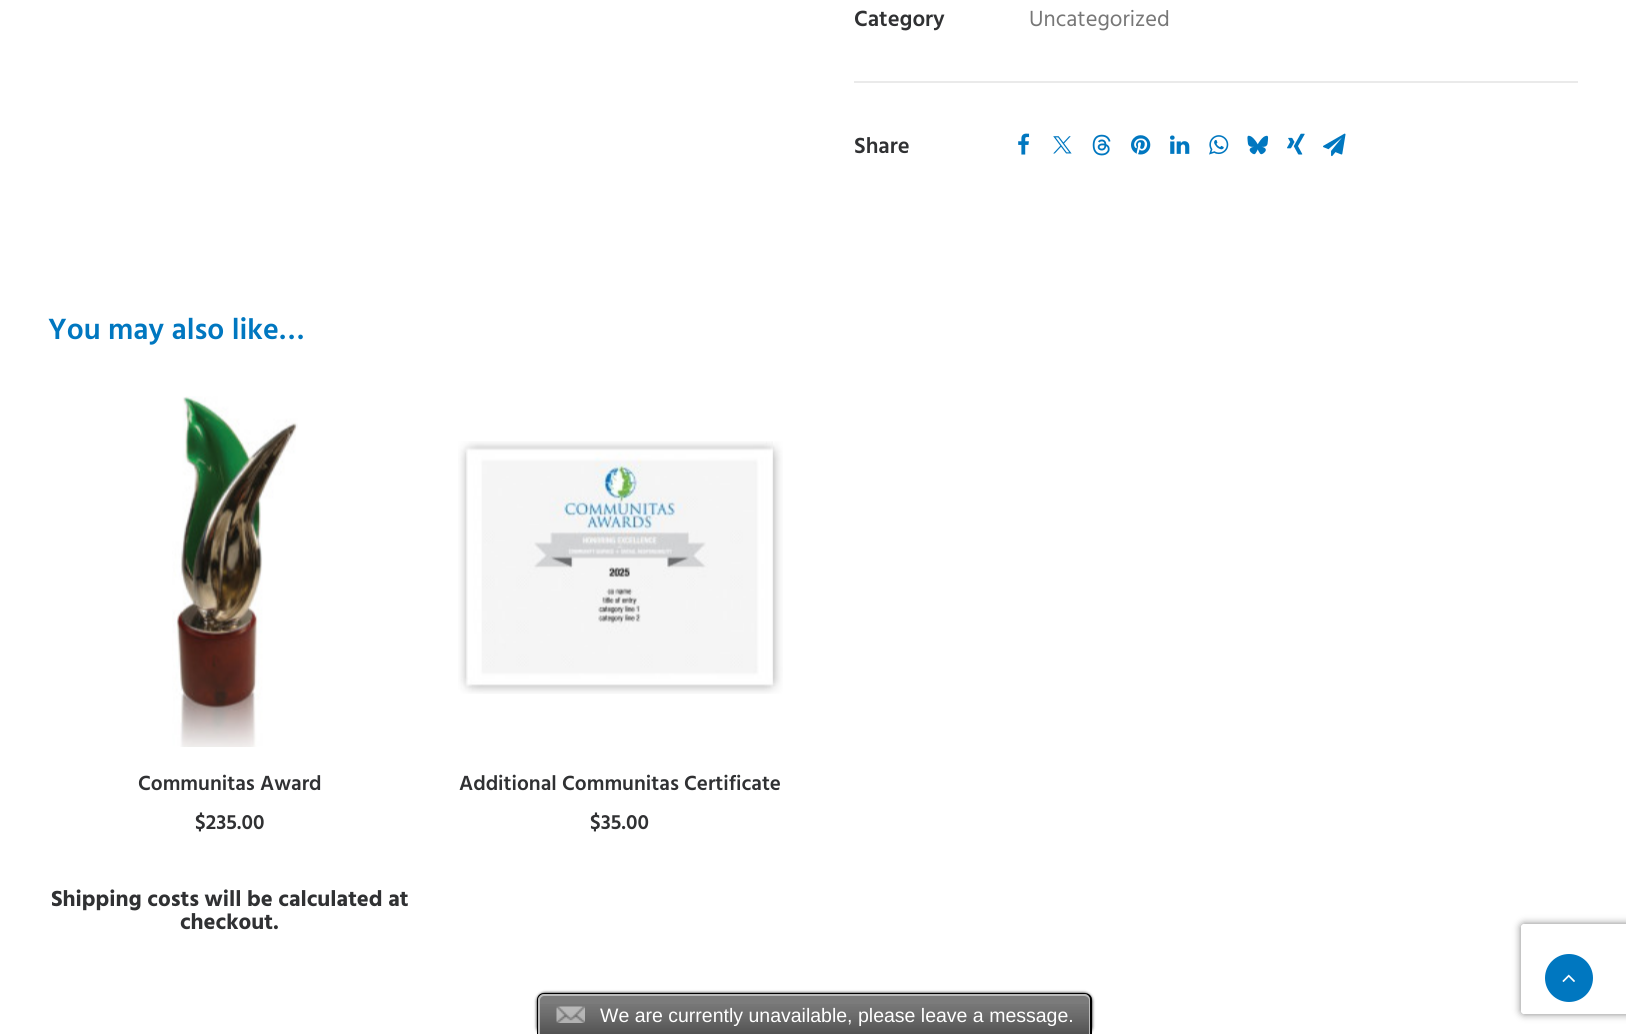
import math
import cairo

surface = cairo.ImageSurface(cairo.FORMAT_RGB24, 1626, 1034)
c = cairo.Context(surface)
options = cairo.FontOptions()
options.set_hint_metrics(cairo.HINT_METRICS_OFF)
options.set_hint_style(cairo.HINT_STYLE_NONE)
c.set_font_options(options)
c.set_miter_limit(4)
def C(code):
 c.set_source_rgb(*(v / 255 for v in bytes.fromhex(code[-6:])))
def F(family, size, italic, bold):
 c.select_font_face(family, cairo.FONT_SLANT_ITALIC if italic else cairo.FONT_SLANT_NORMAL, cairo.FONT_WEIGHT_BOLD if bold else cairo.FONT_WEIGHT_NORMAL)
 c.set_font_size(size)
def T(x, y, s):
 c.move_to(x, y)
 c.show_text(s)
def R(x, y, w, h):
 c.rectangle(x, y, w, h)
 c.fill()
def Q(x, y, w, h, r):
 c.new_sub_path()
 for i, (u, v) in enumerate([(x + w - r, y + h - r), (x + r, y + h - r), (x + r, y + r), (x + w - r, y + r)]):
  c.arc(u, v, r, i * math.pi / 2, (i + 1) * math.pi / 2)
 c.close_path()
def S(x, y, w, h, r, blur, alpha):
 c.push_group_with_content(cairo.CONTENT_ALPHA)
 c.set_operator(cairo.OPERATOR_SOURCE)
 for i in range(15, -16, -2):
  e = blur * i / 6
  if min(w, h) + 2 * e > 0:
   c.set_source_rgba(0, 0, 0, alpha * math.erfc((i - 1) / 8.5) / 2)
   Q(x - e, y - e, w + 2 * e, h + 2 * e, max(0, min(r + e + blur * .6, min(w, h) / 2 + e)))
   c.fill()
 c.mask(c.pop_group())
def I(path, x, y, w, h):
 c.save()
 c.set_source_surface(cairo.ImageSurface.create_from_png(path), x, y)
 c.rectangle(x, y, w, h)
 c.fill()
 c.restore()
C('ffffff')
c.paint()
F('Hind SemiBold',22.5,0,0)
C('303133')
T(854,26,'Category')
F('Hind',22.5,0,0)
C('777777')
T(1029,26,'Uncategorized')
C('eaeaea')
R(854,81,724,2)
F('Hind SemiBold',22.5,0,0)
C('303133')
T(854,153,'Share')
I('1.png',1018,133,12,22)
I('2.png',1053,136,19,18)
I('3.png',1092,134,19,22)
I('4.png',1131,135,20,20)
I('5.png',1170,135,20,19)
I('6.png',1209,135,20,20)
I('7.png',1247,135,22,20)
I('8.png',1287,133,18,22)
I('9.png',1323,133,23,24)
F('Hind SemiBold',30,0,0)
C('0077c0')
T(48,339,'You may also like…')
I('10.png',172,396,126,351)
F('Hind SemiBold',21,0,0)
C('303133')
T(138,790,'Communitas Award')
T(195,829,'$235.00')
F('Hind',22.5,0,1)
T(51,906,'Shipping costs will be calculated at')
T(180,929,'checkout.')
I('11.png',458,441,325,253)
F('Hind SemiBold',21,0,0)
T(459,790,'Additional Communitas Certificate')
T(590,829,'$35.00')
c.save()
c.set_fill_rule(cairo.FILL_RULE_EVEN_ODD)
c.new_path()
c.move_to(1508,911)
c.line_to(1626,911)
c.line_to(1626,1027)
c.line_to(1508,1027)
c.close_path()
c.move_to(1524,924)
c.line_to(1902,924)
c.curve_to(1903.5,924,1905,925.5,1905,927)
c.line_to(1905,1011)
c.curve_to(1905,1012.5,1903.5,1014,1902,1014)
c.line_to(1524,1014)
c.curve_to(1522.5,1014,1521,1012.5,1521,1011)
c.line_to(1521,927)
c.curve_to(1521,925.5,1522.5,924,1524,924)
c.close_path()
c.clip()
C('808080')
S(1521,924,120,90,3,4,1)
c.restore()
C('0077c0')
c.arc(1569,978,23,0,2 * math.pi)
c.fill_preserve()
c.stroke()
I('12.png',1562,974,13,8)
C('000000')
S(537,993,555,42,8,1.5,1)
C('7b7b7b')
c.new_path()
c.move_to(545,993)
c.line_to(1084,993)
c.curve_to(1088.5,993,1092,996.5,1092,1001)
c.line_to(1092,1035)
c.line_to(537,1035)
c.line_to(537,1001)
c.curve_to(537,996.5,540.5,993,545,993)
c.close_path()
c.fill()
I('13.png',540,1004,549,30)
C('000000')
c.set_fill_rule(cairo.FILL_RULE_EVEN_ODD)
c.new_path()
c.move_to(544,993)
c.line_to(1084,993)
c.curve_to(1089,993,1092,996,1092,1000)
c.line_to(1092,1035)
c.line_to(537,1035)
c.line_to(537,1000)
c.curve_to(537,996,540,993,544,993)
c.close_path()
c.move_to(544,994)
c.line_to(1084,994)
c.curve_to(1088,994,1090,997,1090,1000)
c.line_to(1090,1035)
c.line_to(538,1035)
c.line_to(538,1000)
c.curve_to(538,997,541,994,544,994)
c.close_path()
c.fill()
I('14.png',556,1006,29,17)
C('bbbbbb')
c.new_path()
c.move_to(544,994)
c.line_to(1084,994)
c.curve_to(1088,994,1090,997,1090,1000)
c.line_to(1090,1034)
c.line_to(538,1034)
c.line_to(538,1000)
c.curve_to(538,997,541,994,544,994)
c.close_path()
c.move_to(544,996)
c.line_to(1084,996)
c.curve_to(1087,996,1089,998,1089,1000)
c.line_to(1089,1034)
c.line_to(540,1034)
c.line_to(540,1000)
c.curve_to(540,998,542,996,544,996)
c.close_path()
c.fill()
F('Liberation Sans',19.5,0,0)
C('ffffff')
T(600,1022,'We are currently unavailable, please leave a message.')
surface.write_to_png('o.png')
